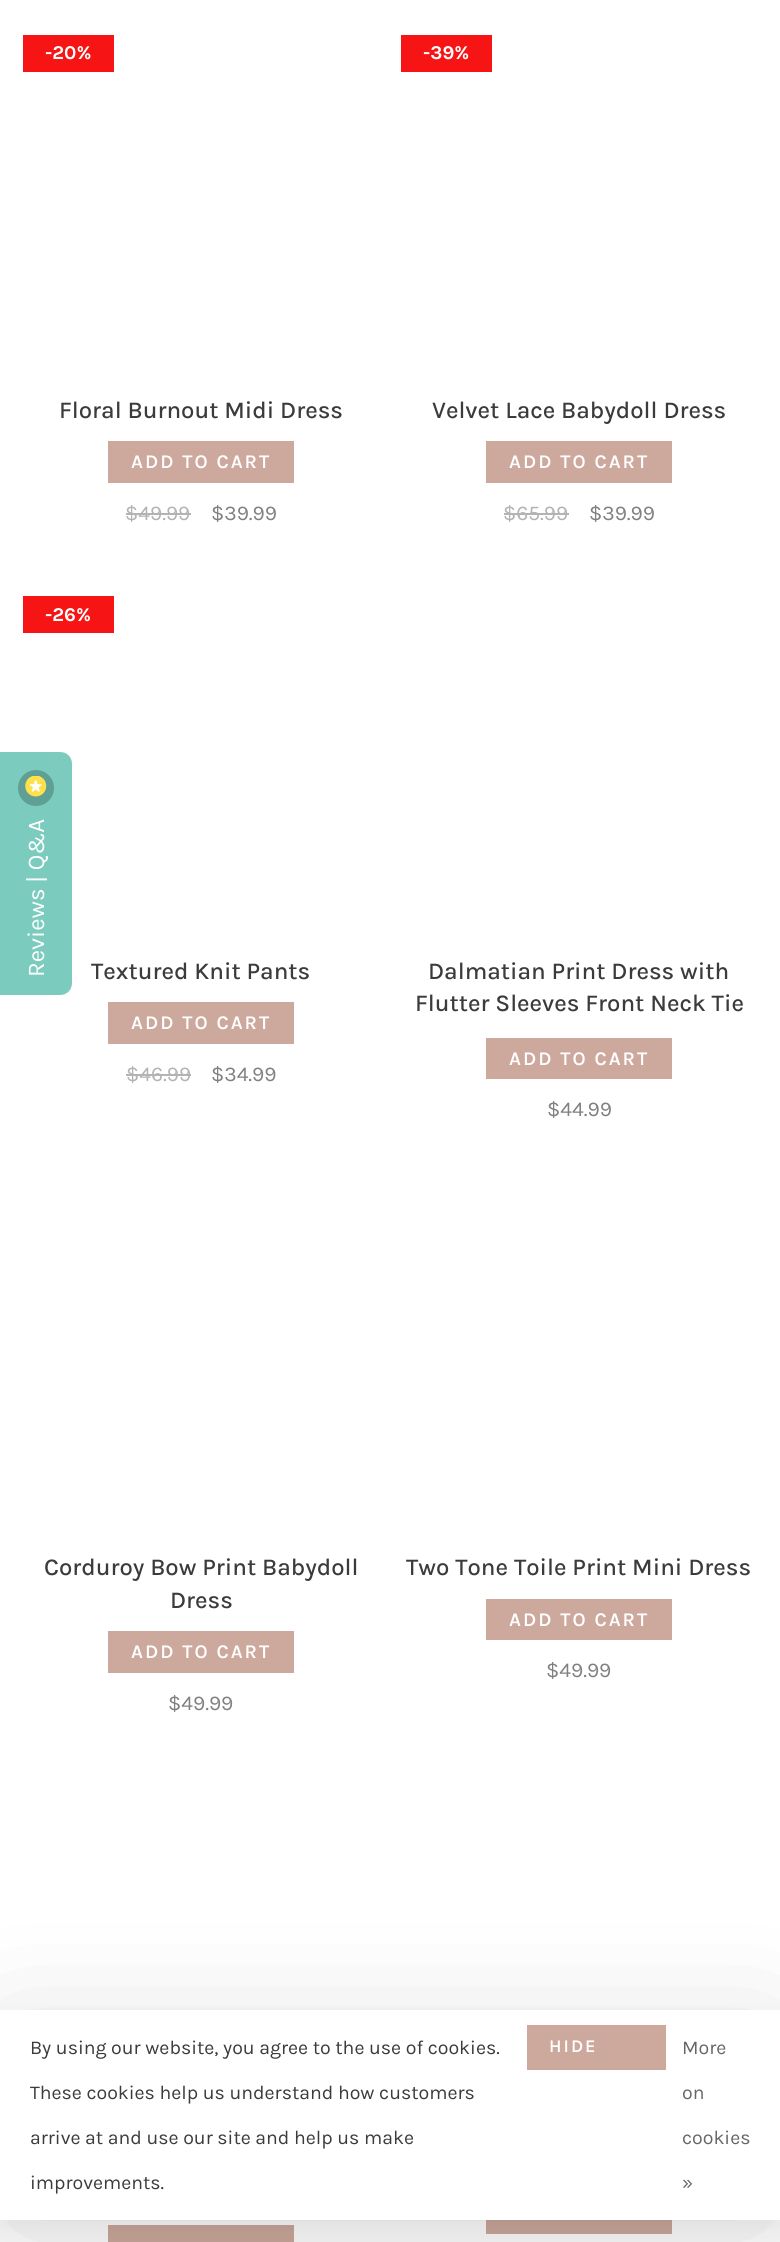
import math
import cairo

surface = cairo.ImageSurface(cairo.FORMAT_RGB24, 780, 2242)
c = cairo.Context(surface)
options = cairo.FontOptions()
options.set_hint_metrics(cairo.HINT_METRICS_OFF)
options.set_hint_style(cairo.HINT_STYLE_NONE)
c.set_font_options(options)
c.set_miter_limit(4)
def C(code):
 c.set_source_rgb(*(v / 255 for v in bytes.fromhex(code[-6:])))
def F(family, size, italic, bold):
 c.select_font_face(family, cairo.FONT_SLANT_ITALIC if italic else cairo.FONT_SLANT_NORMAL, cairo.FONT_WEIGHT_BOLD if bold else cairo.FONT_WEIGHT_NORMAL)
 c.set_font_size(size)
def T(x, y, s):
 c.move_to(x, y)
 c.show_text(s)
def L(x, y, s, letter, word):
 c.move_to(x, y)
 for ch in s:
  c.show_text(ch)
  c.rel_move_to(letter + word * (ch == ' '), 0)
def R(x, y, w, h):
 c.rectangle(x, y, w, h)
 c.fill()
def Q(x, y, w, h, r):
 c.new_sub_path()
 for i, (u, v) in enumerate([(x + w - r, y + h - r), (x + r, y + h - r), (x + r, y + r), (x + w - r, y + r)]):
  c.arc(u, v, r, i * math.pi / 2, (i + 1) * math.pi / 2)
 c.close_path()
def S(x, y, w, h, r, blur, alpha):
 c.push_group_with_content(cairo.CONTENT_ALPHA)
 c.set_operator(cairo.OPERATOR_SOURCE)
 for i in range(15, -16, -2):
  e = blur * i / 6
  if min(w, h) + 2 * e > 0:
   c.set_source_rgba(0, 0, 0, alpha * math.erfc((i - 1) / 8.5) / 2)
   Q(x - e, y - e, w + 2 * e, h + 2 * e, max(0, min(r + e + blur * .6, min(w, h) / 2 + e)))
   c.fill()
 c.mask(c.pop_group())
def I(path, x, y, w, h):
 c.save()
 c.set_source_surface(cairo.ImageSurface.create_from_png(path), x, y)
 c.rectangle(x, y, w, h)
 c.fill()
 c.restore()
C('ffffff')
c.paint()
C('f71414')
R(23,35,91,37)
F('Karla',19.5,0,1)
C('ffffff')
T(45,59,'-20%')
F('Karla Medium',24,0,0)
C('3b3b3b')
T(59,418,'Floral Burnout Midi Dress')
C('cda99d')
R(108,441,186,42)
F('Karla SemiBold',19.5,0,0)
C('ffffff')
L(131,468,'ADD TO CART',2,0)
F('Karla',21,0,0)
C('b3b3b3')
T(125,520,'$49.99')
R(126,513,65,2)
C('808080')
T(211,520,'$39.99')
C('f71414')
R(401,35,91,37)
F('Karla',19.5,0,1)
C('ffffff')
T(423,59,'-39%')
F('Karla Medium',24,0,0)
C('3b3b3b')
T(432,418,'Velvet Lace Babydoll Dress')
C('cda99d')
R(486,441,186,42)
F('Karla SemiBold',19.5,0,0)
C('ffffff')
L(509,468,'ADD TO CART',2,0)
F('Karla',21,0,0)
C('b3b3b3')
T(503,520,'$65.99')
R(504,513,65,2)
C('808080')
T(589,520,'$39.99')
C('f71414')
R(23,596,91,37)
F('Karla',19.5,0,1)
C('ffffff')
T(45,621,'-26%')
F('Karla Medium',24,0,0)
C('3b3b3b')
T(91,979,'Textured Knit Pants')
C('cda99d')
R(108,1002,186,42)
F('Karla SemiBold',19.5,0,0)
C('ffffff')
L(131,1029,'ADD TO CART',2,0)
F('Karla',21,0,0)
C('b3b3b3')
T(126,1081,'$46.99')
R(126,1074,65,2)
C('808080')
T(211,1081,'$34.99')
F('Karla Medium',24,0,0)
C('3b3b3b')
T(428,979,'Dalmatian Print Dress with')
T(415,1011,'Flutter Sleeves Front Neck Tie')
C('cda99d')
R(486,1038,186,41)
F('Karla SemiBold',19.5,0,0)
C('ffffff')
L(509,1065,'ADD TO CART',2,0)
F('Karla',21,0,0)
C('808080')
T(547,1116,'$44.99')
F('Karla Medium',24,0,0)
C('3b3b3b')
T(44,1575,'Corduroy Bow Print Babydoll')
T(170,1608,'Dress')
C('cda99d')
R(108,1631,186,42)
F('Karla SemiBold',19.5,0,0)
C('ffffff')
L(131,1658,'ADD TO CART',2,0)
F('Karla',21,0,0)
C('808080')
T(168,1710,'$49.99')
F('Karla Medium',24,0,0)
C('3b3b3b')
T(406,1575,'Two Tone Toile Print Mini Dress')
C('cda99d')
R(486,1599,186,41)
F('Karla SemiBold',19.5,0,0)
C('ffffff')
L(509,1626,'ADD TO CART',2,0)
F('Karla',21,0,0)
C('808080')
T(546,1677,'$49.99')
C('cda99d')
R(108,2225,186,17)
R(486,2220,186,14)
C('000000')
S(0,2019,780,210,0,11,.05)
S(9,2040,762,192,0,64.5,.15)
C('ffffff')
R(0,2010,780,210)
F('Karla',19.5,0,0)
C('3b3b3b')
T(30,2054,'By using our website, you agree to the use of cookies.')
C('cda99d')
R(527,2025,139,45)
F('Karla SemiBold',18,0,0)
C('ffffff')
L(549,2052,'HIDE',2,0)
F('Karla',19.5,0,0)
C('666666')
T(682,2054,'More')
T(682,2099,'on')
T(682,2144,'cookies')
T(682,2189,'»')
C('3b3b3b')
T(30,2099,'These cookies help us understand how customers')
T(30,2144,'arrive at and use our site and help us make')
T(30,2189,'improvements.')
C('7bccbe')
c.new_path()
c.move_to(0,995)
c.line_to(0,752)
c.line_to(60,752)
c.curve_to(67,752,72,757,72,764)
c.line_to(72,983)
c.curve_to(72,990,67,995,60,995)
c.close_path()
c.fill()
C('609f94')
c.arc(36,788,18,0,2 * math.pi)
c.fill()
I('1.png',25,776,22,21)
F('Karla',24,0,0)
C('ffffff')
c.save()
c.translate(44,977)
c.rotate(-90 * math.pi / 180)
T(0,0,'Reviews | Q&A')
c.restore()
surface.write_to_png('o.png')
